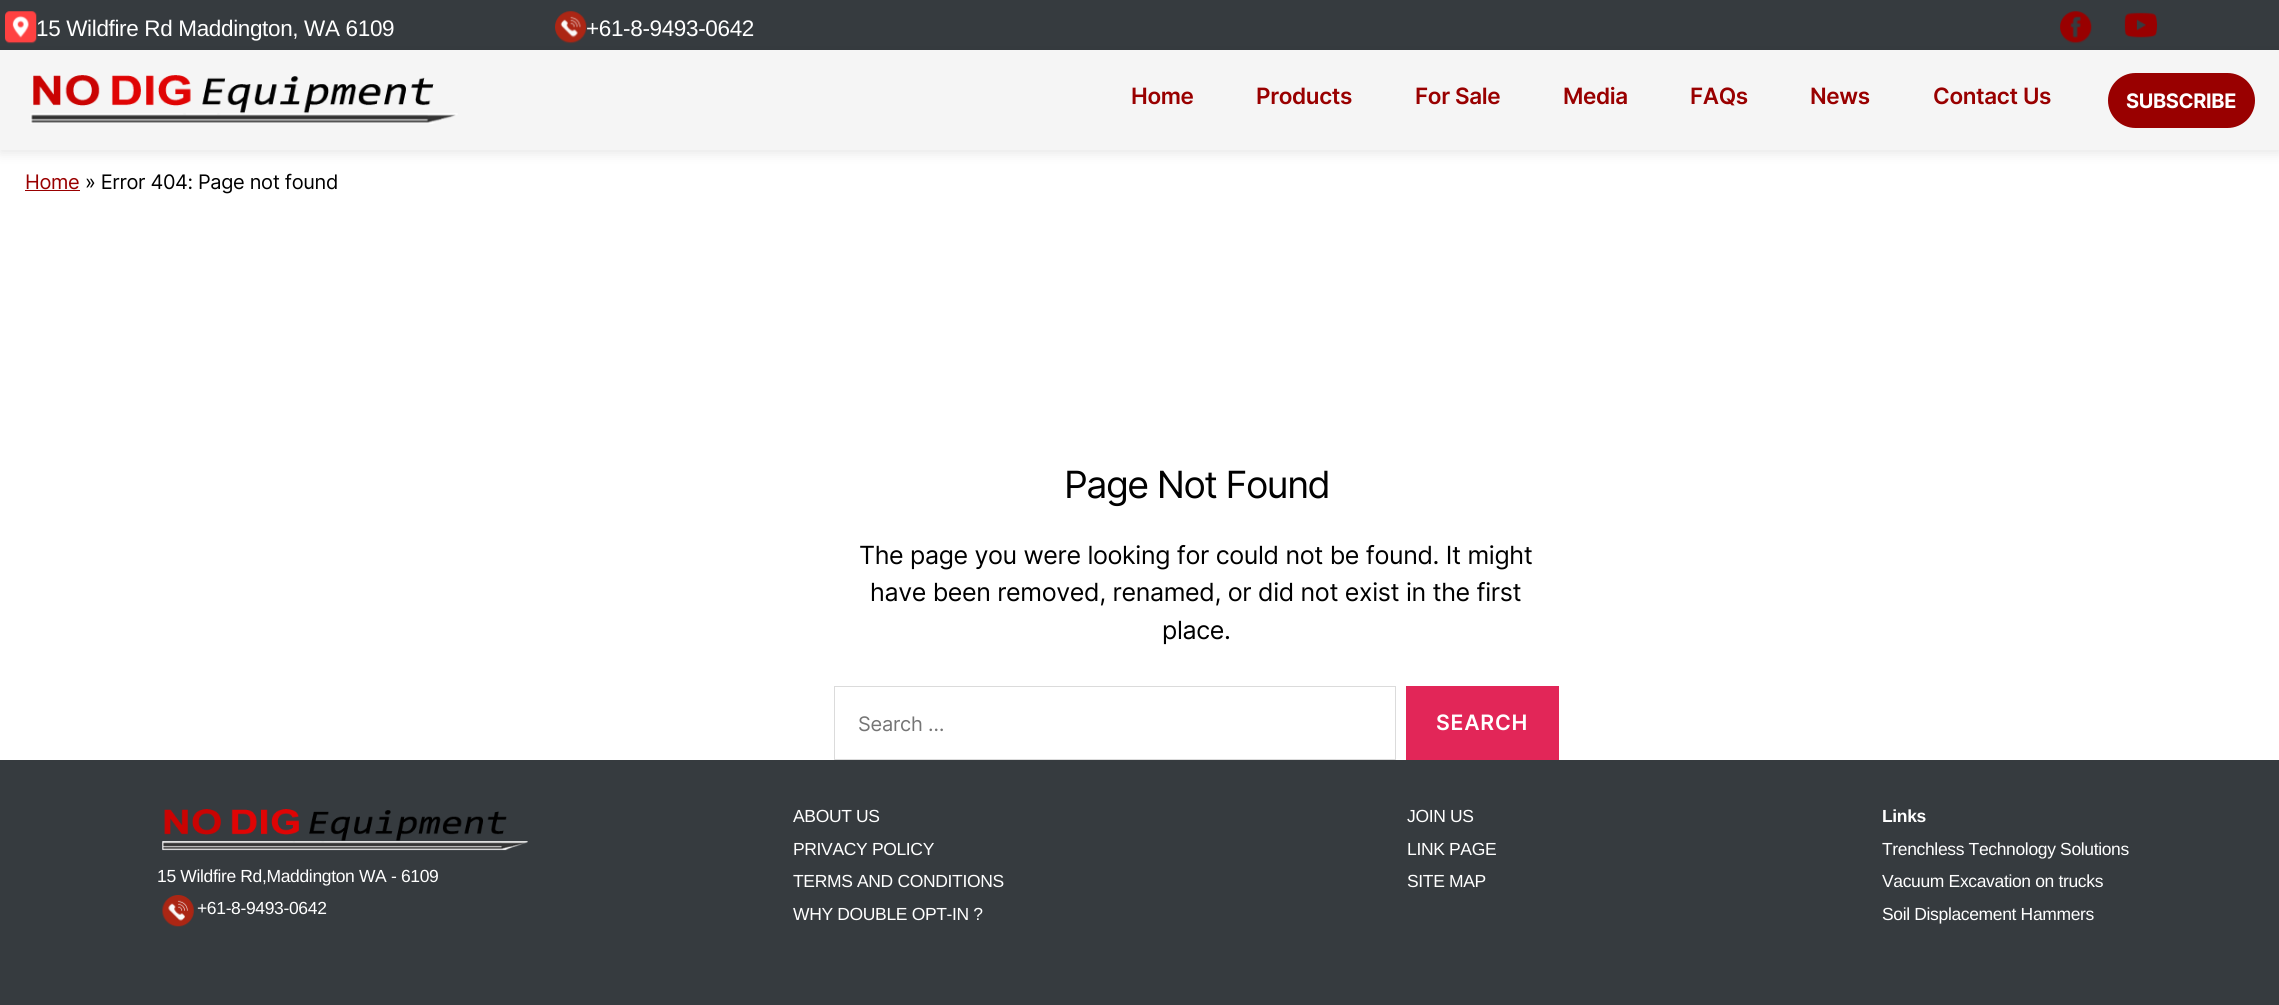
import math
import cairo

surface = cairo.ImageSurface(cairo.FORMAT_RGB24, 2279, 1005)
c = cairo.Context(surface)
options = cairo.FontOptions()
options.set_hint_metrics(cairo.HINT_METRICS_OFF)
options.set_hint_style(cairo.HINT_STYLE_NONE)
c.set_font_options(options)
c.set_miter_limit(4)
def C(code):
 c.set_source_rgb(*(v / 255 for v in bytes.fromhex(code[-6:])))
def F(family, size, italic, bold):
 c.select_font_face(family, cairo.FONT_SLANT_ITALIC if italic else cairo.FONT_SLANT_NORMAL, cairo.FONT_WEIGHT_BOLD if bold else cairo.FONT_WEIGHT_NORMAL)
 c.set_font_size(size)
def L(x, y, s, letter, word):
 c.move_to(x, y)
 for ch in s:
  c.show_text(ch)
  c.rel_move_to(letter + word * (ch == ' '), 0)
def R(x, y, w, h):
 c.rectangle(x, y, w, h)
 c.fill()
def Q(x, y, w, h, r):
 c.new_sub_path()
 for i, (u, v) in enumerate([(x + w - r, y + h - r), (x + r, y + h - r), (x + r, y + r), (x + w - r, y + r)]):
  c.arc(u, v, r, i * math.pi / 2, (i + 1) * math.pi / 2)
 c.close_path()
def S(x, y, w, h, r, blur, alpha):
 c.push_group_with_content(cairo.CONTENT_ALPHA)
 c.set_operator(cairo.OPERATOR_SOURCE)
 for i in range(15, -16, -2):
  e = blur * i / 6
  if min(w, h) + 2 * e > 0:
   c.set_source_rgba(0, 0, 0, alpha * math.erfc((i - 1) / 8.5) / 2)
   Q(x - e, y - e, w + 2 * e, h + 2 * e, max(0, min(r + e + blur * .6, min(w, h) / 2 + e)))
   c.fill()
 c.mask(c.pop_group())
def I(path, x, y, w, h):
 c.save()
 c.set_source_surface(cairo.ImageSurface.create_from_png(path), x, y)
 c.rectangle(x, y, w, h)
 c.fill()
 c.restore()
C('ffffff')
c.paint()
C('363b3f')
R(0,0,2279,50)
I('1.png',5,11,32,33)
F('Liberation Sans',22.5,0,0)
C('ffffff')
L(36,36,'15 Wildfire Rd Maddington, WA 6109',-.35,0)
I('2.png',555,11,32,33)
L(586,36,'+61-8-9493-0642',-.35,0)
I('3.png',2060,11,32,33)
I('4.png',2124,12,33,26)
C('000000')
S(0,53,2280,100,0,6,.1)
C('f5f5f5')
R(0,50,2279,100)
I('5.png',30,75,428,49)
F('Inter SemiBold',22.5,0,0)
C('990000')
L(1131,104,'Home',-.35,0)
L(1256,104,'Products',-.35,0)
L(1415,104,'For Sale',-.35,0)
L(1563,104,'Media',-.35,0)
L(1690,104,'FAQs',-.35,0)
L(1810,104,'News',-.35,0)
L(1933,104,'Contact Us',-.35,0)
Q(2108,73,147,55,27.5)
c.fill()
F('Inter',20,0,1)
C('ffffff')
L(2126,108,'SUBSCRIBE',-.35,0)
F('Inter',20,0,0)
C('990000')
L(25,189,'Home',-.35,0)
R(25,190,55,1)
C('000000')
L(85,189,'» Error 404: Page not found',-.35,0)
F('Inter',37.5,0,0)
L(1064,498,'Page Not Found',-1.5,0)
F('Inter',25,0,0)
L(859,564,'The page you were looking for could not be found. It might',-.35,0)
L(870,601,'have been removed, renamed, or did not exist in the first',-.35,0)
L(1162,639,'place.',-.35,0)
c.rectangle(834.5,686.5,561,73)
C('dbdbdb')
c.set_line_width(1)
c.stroke()
F('Inter',20,0,0)
C('757575')
L(858,731,'Search …',-.25,0)
C('e22658')
R(1406,686,153,74)
F('Inter SemiBold',21.25,0,0)
C('ffffff')
L(1436,730,'SEARCH',.75,0)
C('363b3f')
R(0,760,2279,245)
I('6.png',162,809,366,42)
F('Liberation Sans',17.5,0,0)
C('ffffff')
L(157,882,'15 Wildfire Rd,Maddington WA - 6109',-.35,0)
I('7.png',162,895,32,32)
L(197,914,'+61-8-9493-0642',-.35,0)
L(793,822,'ABOUT US',-.35,0)
L(793,855,'PRIVACY POLICY',-.35,0)
L(793,887,'TERMS AND CONDITIONS',-.35,0)
L(793,920,'WHY DOUBLE OPT-IN ?',-.35,0)
L(1407,822,'JOIN US',-.35,0)
L(1407,855,'LINK PAGE',-.35,0)
L(1407,887,'SITE MAP',-.35,0)
F('Liberation Sans',17.5,0,1)
L(1882,822,'Links',-.35,0)
F('Liberation Sans',17.5,0,0)
L(1882,855,'Trenchless Technology Solutions',-.35,0)
L(1882,887,'Vacuum Excavation on trucks',-.35,0)
L(1882,920,'Soil Displacement Hammers',-.35,0)
surface.write_to_png('o.png')
